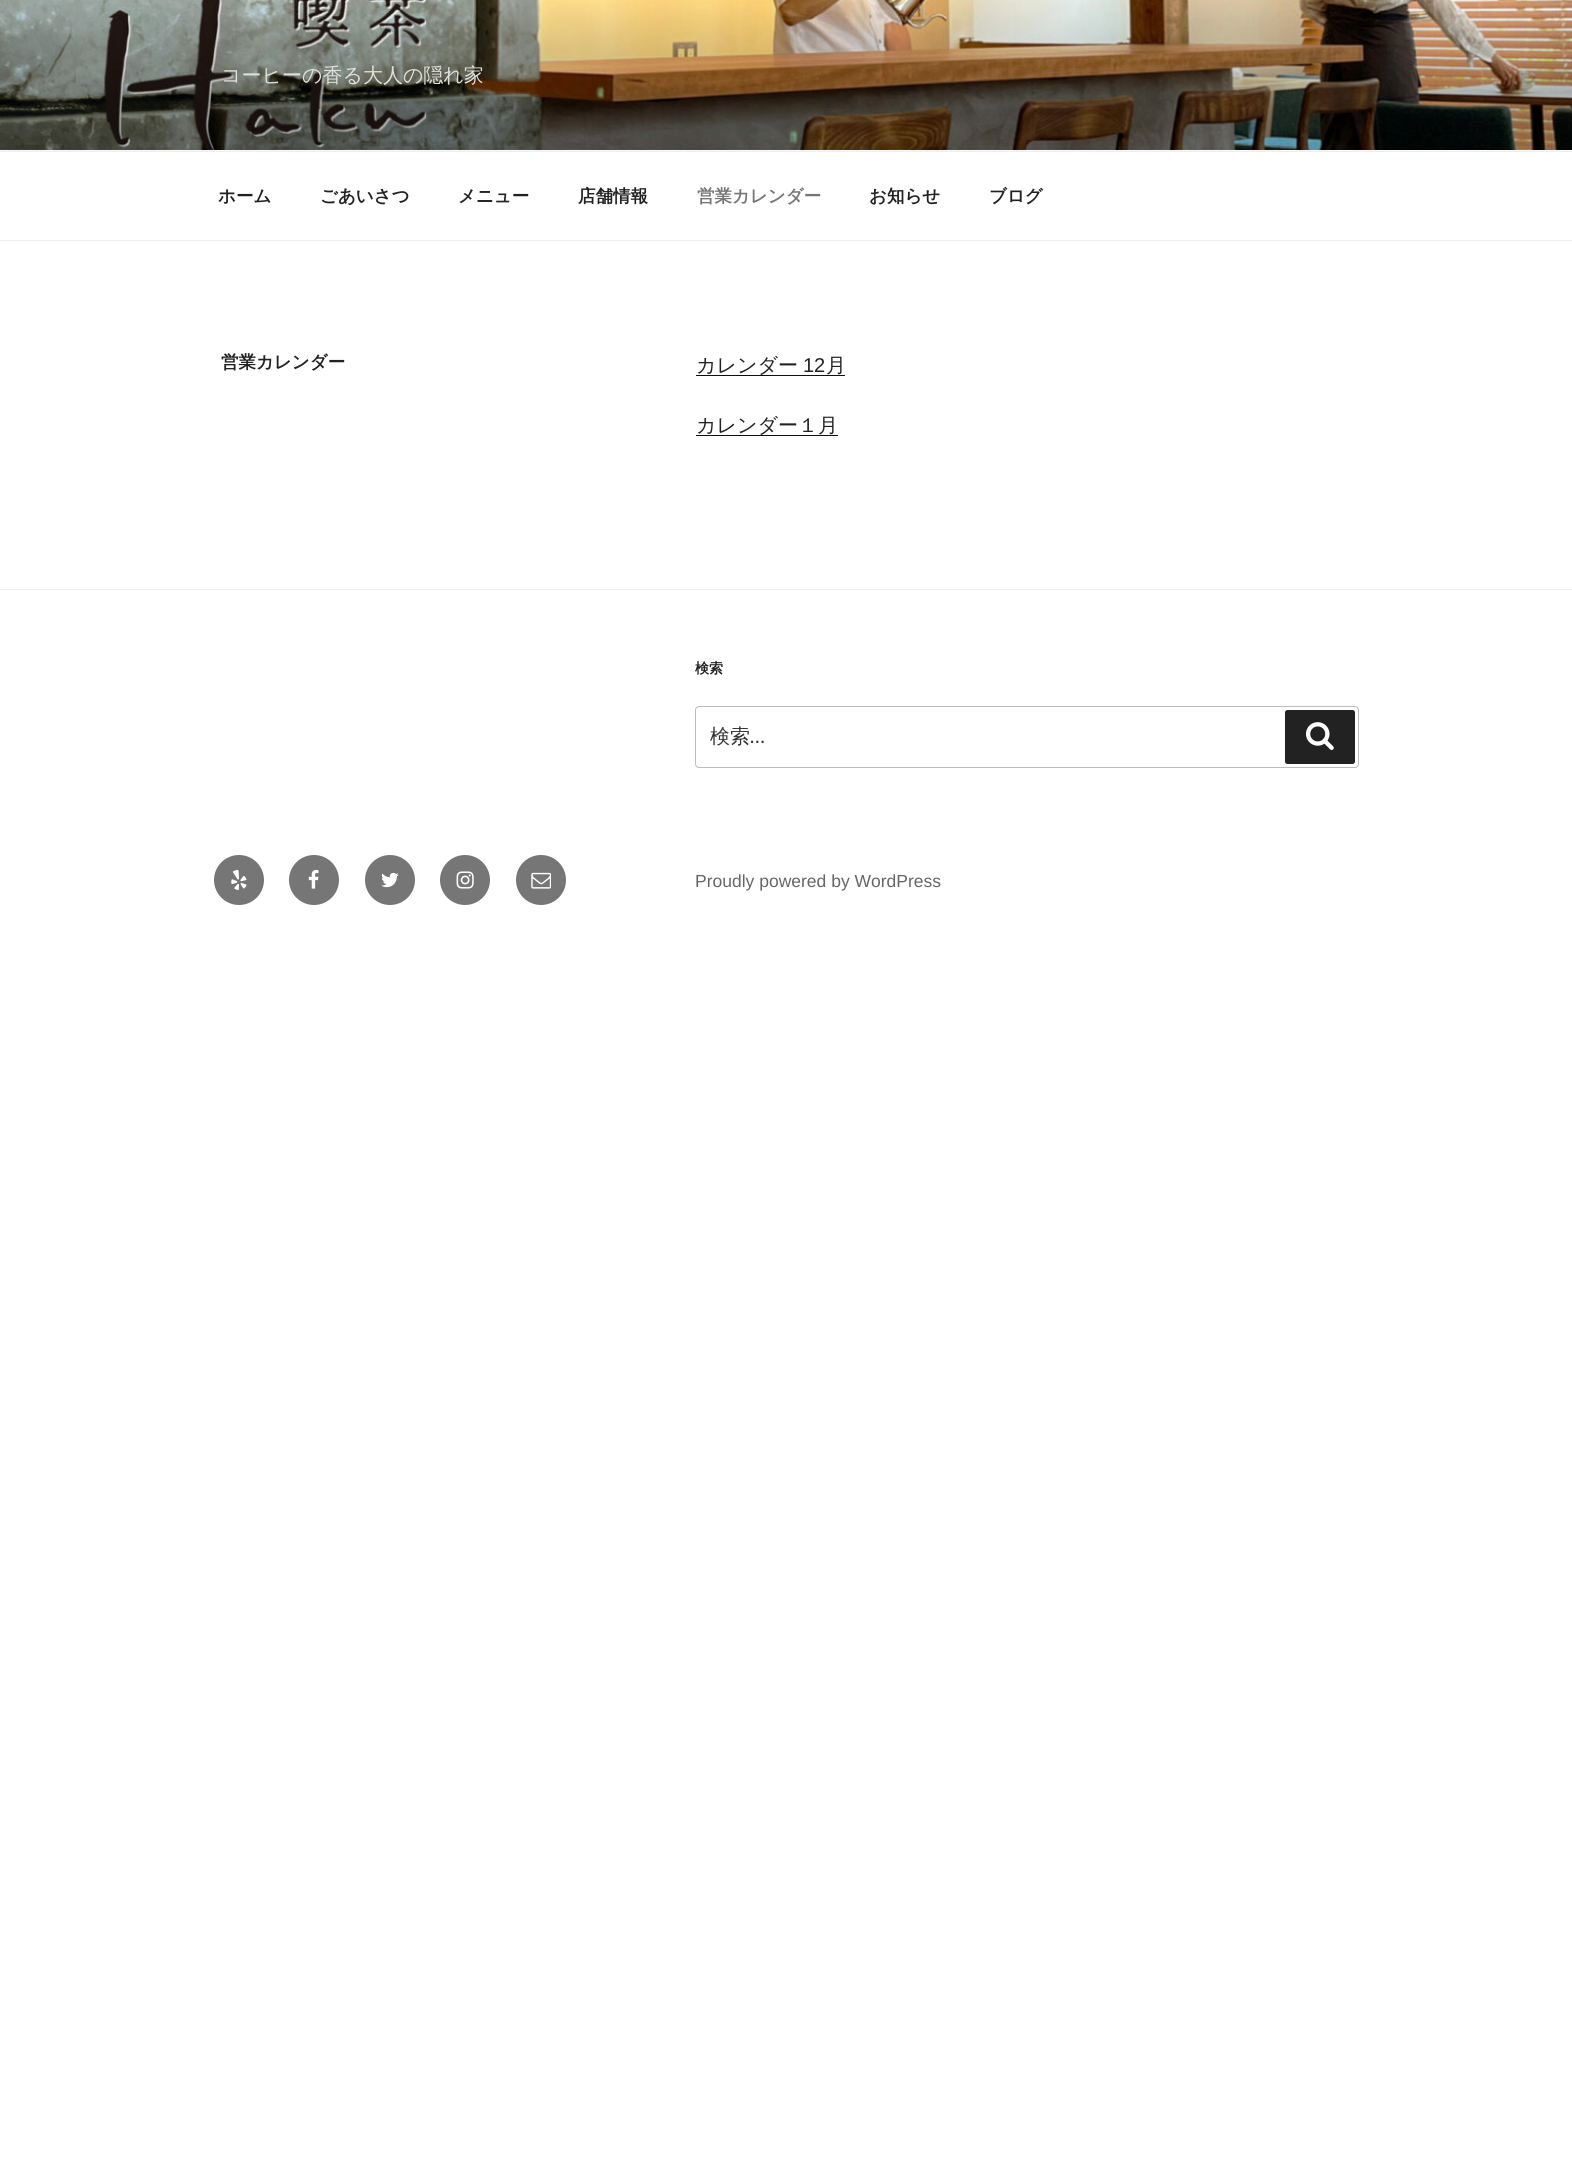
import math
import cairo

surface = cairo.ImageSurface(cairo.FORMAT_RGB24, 1572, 2181)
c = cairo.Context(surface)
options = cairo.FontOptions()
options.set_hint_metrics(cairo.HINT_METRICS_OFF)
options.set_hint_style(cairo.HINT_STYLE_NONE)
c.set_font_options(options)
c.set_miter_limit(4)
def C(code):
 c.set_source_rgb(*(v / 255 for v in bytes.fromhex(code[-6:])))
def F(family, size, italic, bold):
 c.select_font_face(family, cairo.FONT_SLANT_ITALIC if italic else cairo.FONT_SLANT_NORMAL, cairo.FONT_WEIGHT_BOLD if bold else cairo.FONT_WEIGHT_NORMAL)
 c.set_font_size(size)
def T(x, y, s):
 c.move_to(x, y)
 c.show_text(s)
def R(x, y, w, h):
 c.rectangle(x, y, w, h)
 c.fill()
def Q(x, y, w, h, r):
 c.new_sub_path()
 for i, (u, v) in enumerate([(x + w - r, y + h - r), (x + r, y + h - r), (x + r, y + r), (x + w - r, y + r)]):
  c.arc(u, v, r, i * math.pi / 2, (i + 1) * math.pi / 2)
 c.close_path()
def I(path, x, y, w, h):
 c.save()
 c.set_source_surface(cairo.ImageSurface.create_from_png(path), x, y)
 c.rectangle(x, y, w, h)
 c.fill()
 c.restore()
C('ffffff')
c.paint()
C('fafafa')
R(0,150,1572,1)
I('1.png',0,0,1572,150)
F('WenQuanYi Zen Hei Medium',20,0,0)
C('dfe0dd')
T(221,82,'コーヒーの香る大人の隠れ家')
C('eeeeee')
R(0,151,1572,1)
R(0,240,1572,1)
F('WenQuanYi Zen Hei',17.5,0,1)
C('222222')
T(218,202,'ホーム')
T(320,202,'ごあいさつ')
T(458,202,'メニュー')
T(578,202,'店舗情報')
C('767676')
T(697,202,'営業カレンダー')
C('222222')
T(869,202,'お知らせ')
T(989,202,'ブログ')
T(221,368,'営業カレンダー')
C('0f0f0f')
R(696,375,149,1)
F('WenQuanYi Zen Hei Medium',20,0,0)
C('222222')
T(696,372,'カレンダー')
F('Liberation Sans',20,0,0)
T(803,372,'12')
F('WenQuanYi Zen Hei Medium',20,0,0)
T(826,372,'月')
C('0f0f0f')
R(696,435,142,1)
C('222222')
T(696,432,'カレンダー１月')
C('eeeeee')
R(0,589,1572,1)
F('WenQuanYi Zen Hei',14,0,1)
C('222222')
T(695,673,'検索')
Q(695.5,706.5,663,61,3.5)
C('bbbbbb')
c.set_line_width(1)
c.stroke()
F('WenQuanYi Zen Hei Medium',20,0,0)
C('333333')
T(710,743,'検索')
F('Libre Franklin',20,0,0)
T(750,743,'…')
C('222222')
Q(1285,710,70,54,2.5)
c.fill()
I('2.png',1305,722,29,28)
C('767676')
c.arc(239,880,25,0,2 * math.pi)
c.fill()
I('3.png',231,870,16,20)
c.arc(314,880,25,0,2 * math.pi)
c.fill()
I('4.png',308,870,11,19)
c.arc(390,880,25,0,2 * math.pi)
c.fill()
I('5.png',381,872,18,16)
c.arc(465,880,25,0,2 * math.pi)
c.fill()
I('6.png',456,871,18,18)
c.arc(541,880,25,0,2 * math.pi)
c.fill()
I('7.png',531,872,20,17)
F('Liberation Sans',17.5,0,0)
C('666666')
T(695,887,'Proudly powered by WordPress')
surface.write_to_png('o.png')
